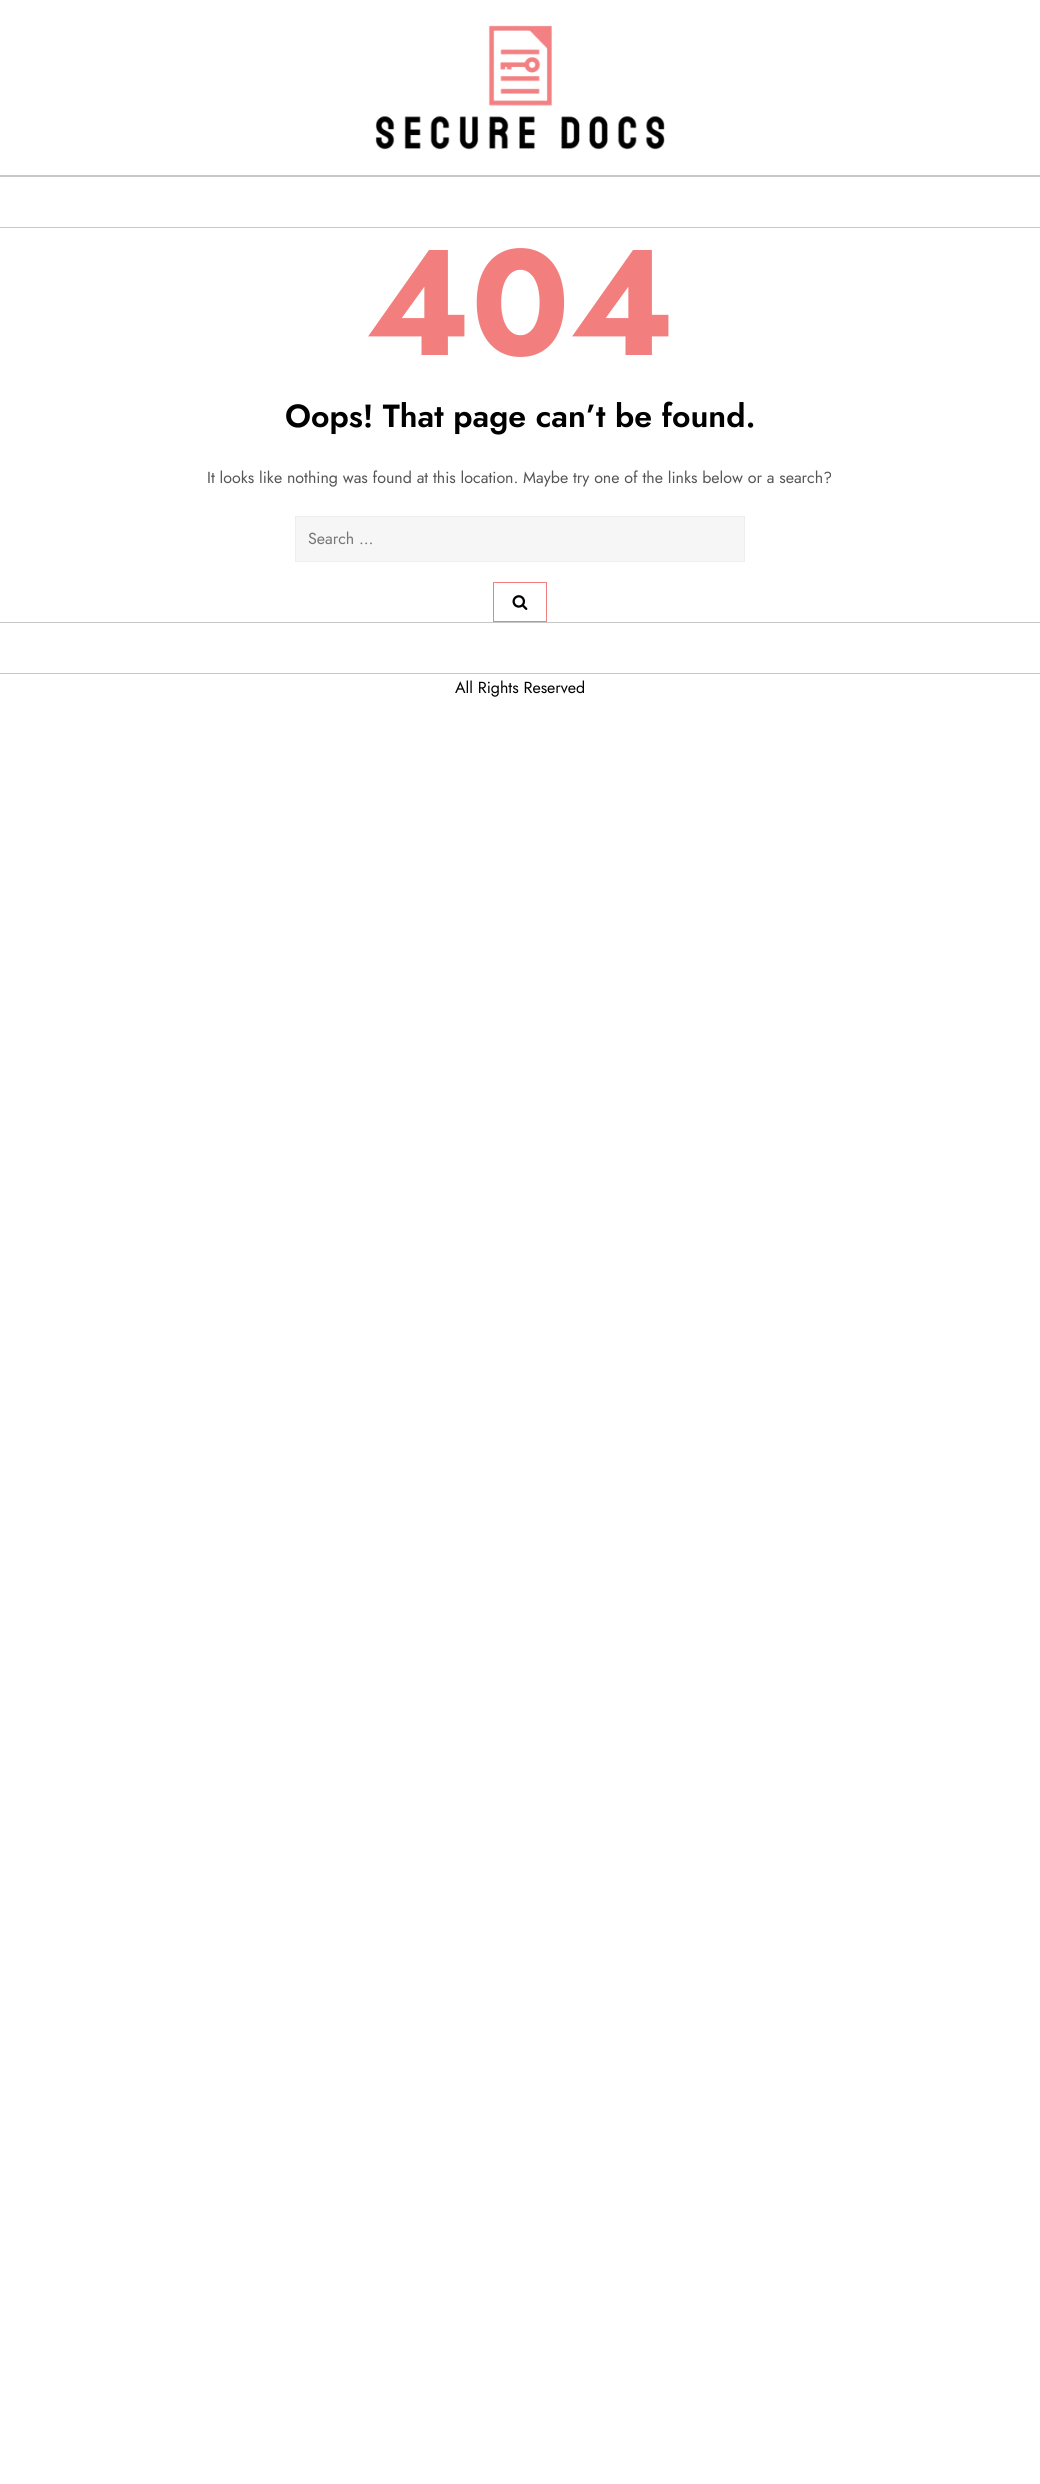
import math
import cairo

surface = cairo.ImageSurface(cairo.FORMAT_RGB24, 1040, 2484)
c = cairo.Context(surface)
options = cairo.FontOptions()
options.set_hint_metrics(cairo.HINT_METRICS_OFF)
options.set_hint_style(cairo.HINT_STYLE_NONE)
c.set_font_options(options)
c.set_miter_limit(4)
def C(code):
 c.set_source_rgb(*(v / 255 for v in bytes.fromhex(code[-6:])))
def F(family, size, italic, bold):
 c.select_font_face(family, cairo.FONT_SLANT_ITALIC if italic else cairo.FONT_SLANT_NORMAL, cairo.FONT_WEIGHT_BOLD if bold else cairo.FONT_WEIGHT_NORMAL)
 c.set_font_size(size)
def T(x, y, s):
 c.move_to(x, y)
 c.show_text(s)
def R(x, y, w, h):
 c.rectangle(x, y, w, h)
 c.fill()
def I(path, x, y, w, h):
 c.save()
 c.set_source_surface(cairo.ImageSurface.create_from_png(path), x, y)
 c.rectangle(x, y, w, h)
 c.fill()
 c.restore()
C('ffffff')
c.paint()
I('1.png',375,25,290,125)
C('c8c7c8')
R(0,175,1040,2)
R(0,227,1040,1)
R(0,622,1040,1)
F('Jost',150,0,1)
C('f37e7e')
T(366,355,'404')
F('Jost SemiBold',32,0,0)
C('000000')
T(285,427,'Oops! That page can’t be found.')
F('Jost',16,0,0)
C('555555')
T(207,483,'It looks like nothing was found at this location. Maybe try one of the links below or a search?')
C('f6f6f6')
c.rectangle(295.5,516.5,449,45)
c.fill_preserve()
C('eeeeee')
c.set_line_width(1)
c.stroke()
C('757575')
T(308,544,'Search …')
c.rectangle(493.5,582.5,53,39)
C('f37e7e')
c.stroke()
I('2.png',512,595,16,15)
C('c8c7c8')
R(0,673,1040,1)
C('000000')
T(455,693,'All Rights Reserved')
surface.write_to_png('o.png')
